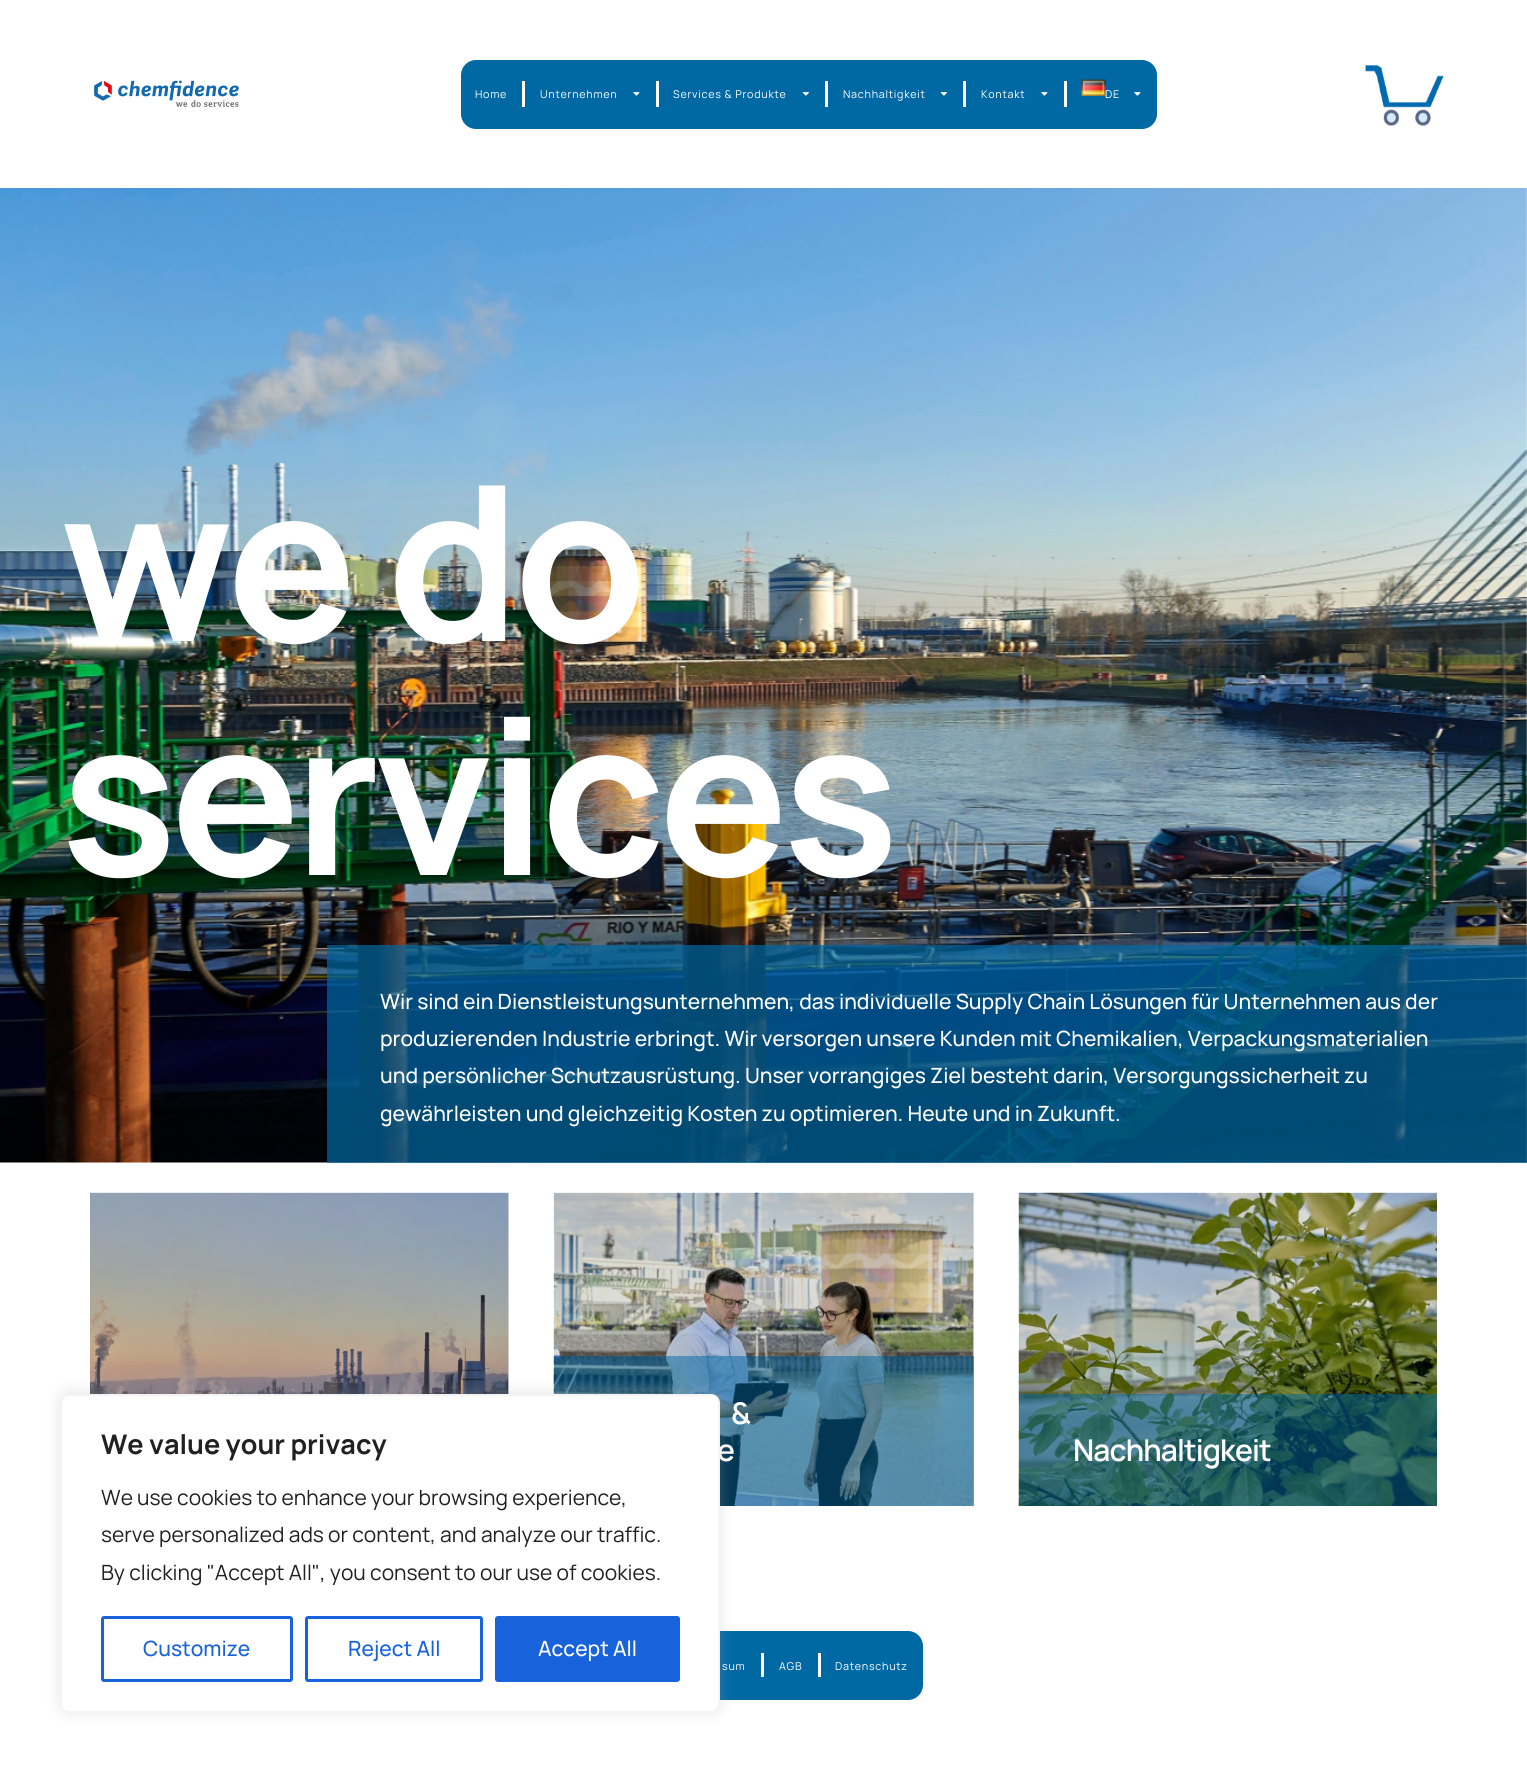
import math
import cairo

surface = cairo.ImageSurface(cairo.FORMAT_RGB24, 1527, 1772)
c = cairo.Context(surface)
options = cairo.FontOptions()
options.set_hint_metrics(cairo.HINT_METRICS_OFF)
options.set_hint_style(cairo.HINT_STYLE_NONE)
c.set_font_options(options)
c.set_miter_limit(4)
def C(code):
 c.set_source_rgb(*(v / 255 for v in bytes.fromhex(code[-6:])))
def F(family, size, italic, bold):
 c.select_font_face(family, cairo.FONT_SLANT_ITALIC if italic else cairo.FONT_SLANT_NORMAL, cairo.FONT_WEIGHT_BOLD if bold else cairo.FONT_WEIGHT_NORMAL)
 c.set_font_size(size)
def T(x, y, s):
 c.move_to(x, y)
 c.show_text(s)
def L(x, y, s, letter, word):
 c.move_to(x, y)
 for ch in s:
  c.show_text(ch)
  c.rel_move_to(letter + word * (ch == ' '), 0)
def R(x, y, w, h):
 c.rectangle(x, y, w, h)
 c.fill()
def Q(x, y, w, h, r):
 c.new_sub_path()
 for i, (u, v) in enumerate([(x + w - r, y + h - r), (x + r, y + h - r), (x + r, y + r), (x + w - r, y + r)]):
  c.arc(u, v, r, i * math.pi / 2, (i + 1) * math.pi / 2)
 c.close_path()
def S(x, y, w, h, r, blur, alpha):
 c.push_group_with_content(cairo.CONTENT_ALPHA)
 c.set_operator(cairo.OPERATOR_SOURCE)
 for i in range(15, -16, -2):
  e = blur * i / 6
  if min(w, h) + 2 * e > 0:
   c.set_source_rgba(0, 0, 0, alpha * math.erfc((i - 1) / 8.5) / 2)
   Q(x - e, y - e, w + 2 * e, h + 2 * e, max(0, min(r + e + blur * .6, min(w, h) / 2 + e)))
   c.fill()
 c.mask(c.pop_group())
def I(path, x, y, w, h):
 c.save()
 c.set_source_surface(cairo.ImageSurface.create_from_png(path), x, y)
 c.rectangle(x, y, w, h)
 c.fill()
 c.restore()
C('ffffff')
c.paint()
C('dcdcdc')
R(973,1193,1,313)
R(508,1193,1,201)
I('1.png',94,80,145,27)
C('0068a3')
Q(461,60,696,69,15)
c.fill()
F('Manrope',10.75,0,0)
C('ffffff')
L(475,98,'Home',.75,0)
R(522,81,3,26)
L(540,98,'Unternehmen',.75,0)
I('2.png',633,92,7,4)
R(656,81,3,26)
L(673,98,'Services & Produkte',.75,0)
I('3.png',802,92,7,4)
R(825,81,3,26)
L(843,98,'Nachhaltigkeit',.75,0)
I('3.png',940,92,7,4)
R(963,81,3,26)
L(981,98,'Kontakt',.75,0)
I('2.png',1041,92,7,4)
R(1064,81,3,26)
I('4.png',1081,79,25,17)
L(1105,98,'DE',.75,0)
I('2.png',1134,92,7,4)
I('5.png',1365,65,79,61)
I('6.png',0,188,1527,975)
F('Manrope',216,0,1)
L(60,641,'we do',-6.5,0)
L(60,875,'services',-6.5,0)
c.set_source_rgba(0,0.408,0.639,0.7)
R(327,945,1200,218)
F('Manrope Medium',21,0,0)
C('ffffff')
T(380,1009,'Wir sind ein Dienstleistungsunternehmen, das individuelle Supply Chain Lösungen für Unternehmen aus der')
T(380,1046,'produzierenden Industrie erbringt. Wir versorgen unsere Kunden mit Chemikalien, Verpackungsmaterialien')
T(380,1083,'und persönlicher Schutzausrüstung. Unser vorrangiges Ziel besteht darin, Versorgungssicherheit zu')
T(380,1121,'gewährleisten und gleichzeitig Kosten zu optimieren. Heute und in Zukunft.')
I('7.png',90,1192,419,202)
I('8.png',553,1192,421,314)
c.set_source_rgba(0,0.408,0.639,0.5)
R(554,1356,420,150)
F('Manrope SemiBold',30,0,0)
C('ffffff')
L(731,1424,'&',-.9,0)
L(717,1461,'e',-.9,0)
I('9.png',1018,1192,419,314)
c.set_source_rgba(0,0.408,0.639,0.5)
R(1019,1394,418,112)
C('ffffff')
L(1073,1461,'Nachhaltigkeit',-.9,0)
C('0068a3')
Q(605,1631,318,69,15)
c.fill()
F('Manrope',10.75,0,0)
C('ffffff')
L(722,1670,'sum',.75,0)
R(761,1653,3,24)
L(779,1670,'AGB',.75,0)
R(818,1653,3,24)
L(835,1670,'Datenschutz',.75,0)
C('acabab')
S(60,1392,660,320,9,7.5,.3)
C('ffffff')
Q(61,1395,658,317,8)
c.fill_preserve()
C('f4f4f4')
c.stroke()
F('Manrope',27,0,1)
C('212121')
T(101,1454,'We value your privacy')
F('Manrope',21,0,0)
T(101,1505,'We use cookies to enhance your browsing experience,')
T(101,1542,'serve personalized ads or content, and analyze our traffic.')
T(101,1580,'By clicking "Accept All", you consent to our use of cookies.')
Q(102.5,1617.5,189,63,1.5)
C('1863dc')
c.set_line_width(3)
c.stroke()
F('Manrope Medium',21,0,0)
T(143,1656,'Customize')
Q(306.5,1617.5,175,63,1.5)
c.stroke()
T(348,1656,'Reject All')
Q(496.5,1617.5,182,63,1.5)
c.fill_preserve()
c.stroke()
C('ffffff')
T(538,1656,'Accept All')
surface.write_to_png('o.png')
